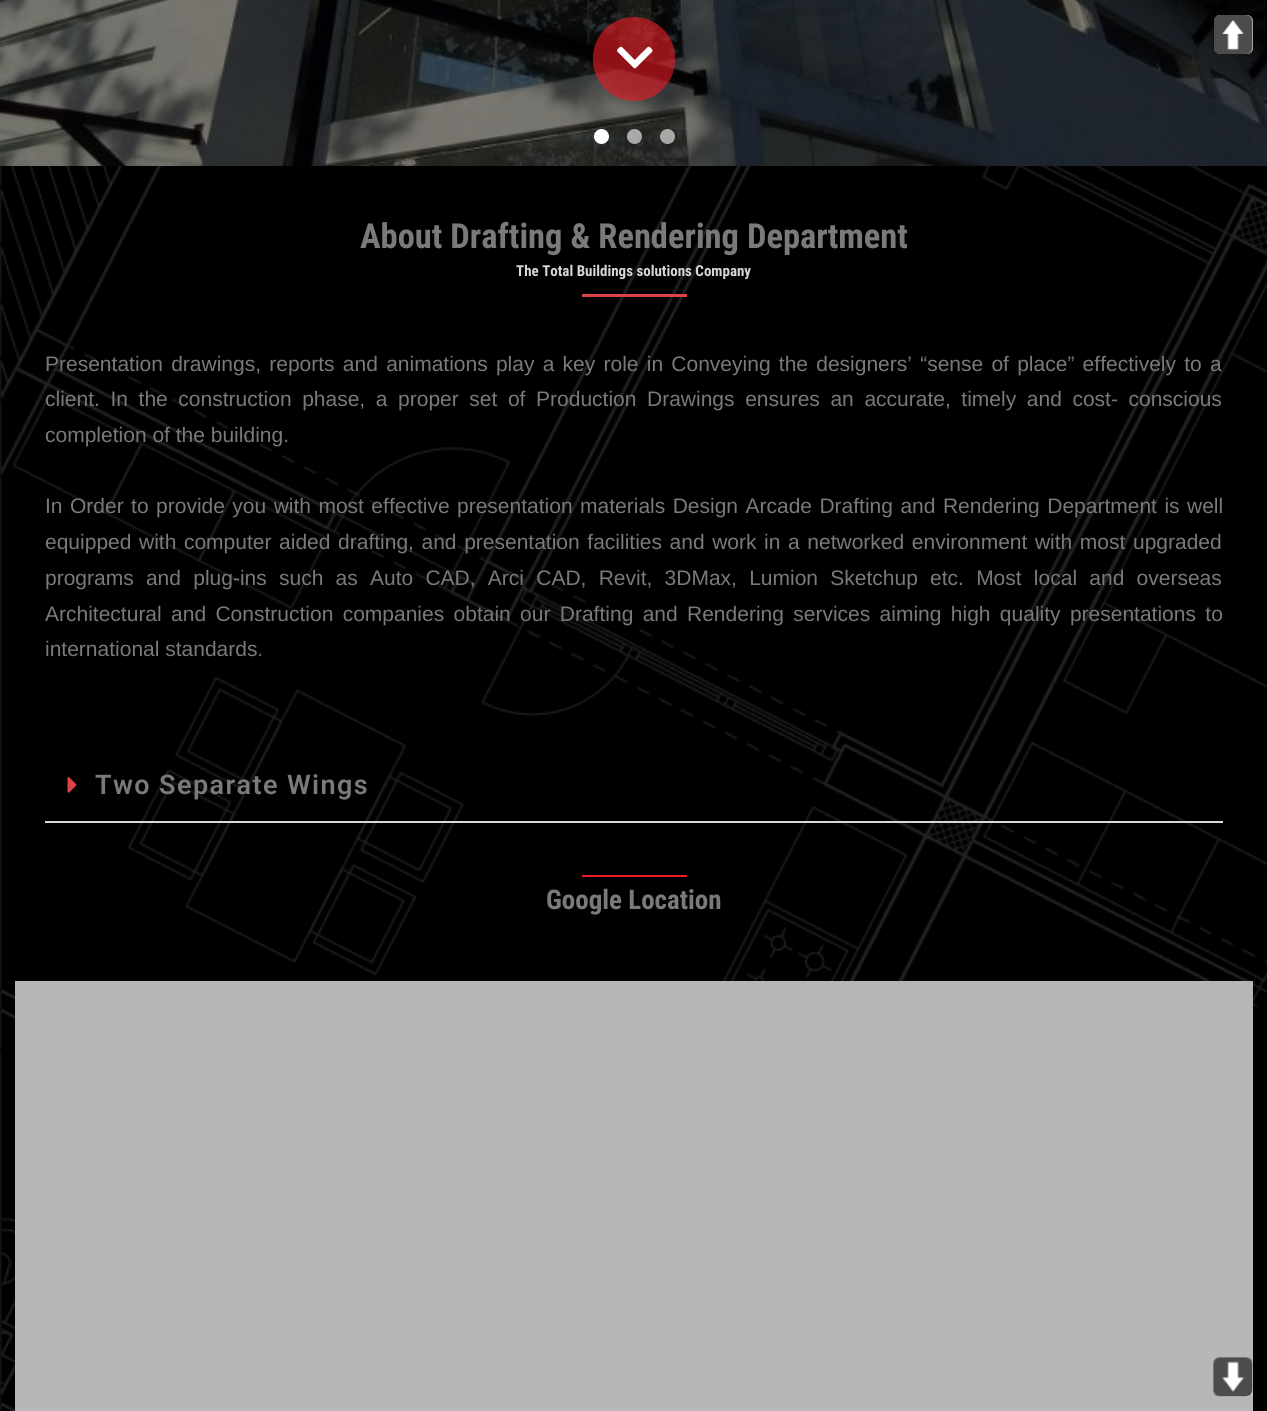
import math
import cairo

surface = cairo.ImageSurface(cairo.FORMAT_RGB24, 1267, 1411)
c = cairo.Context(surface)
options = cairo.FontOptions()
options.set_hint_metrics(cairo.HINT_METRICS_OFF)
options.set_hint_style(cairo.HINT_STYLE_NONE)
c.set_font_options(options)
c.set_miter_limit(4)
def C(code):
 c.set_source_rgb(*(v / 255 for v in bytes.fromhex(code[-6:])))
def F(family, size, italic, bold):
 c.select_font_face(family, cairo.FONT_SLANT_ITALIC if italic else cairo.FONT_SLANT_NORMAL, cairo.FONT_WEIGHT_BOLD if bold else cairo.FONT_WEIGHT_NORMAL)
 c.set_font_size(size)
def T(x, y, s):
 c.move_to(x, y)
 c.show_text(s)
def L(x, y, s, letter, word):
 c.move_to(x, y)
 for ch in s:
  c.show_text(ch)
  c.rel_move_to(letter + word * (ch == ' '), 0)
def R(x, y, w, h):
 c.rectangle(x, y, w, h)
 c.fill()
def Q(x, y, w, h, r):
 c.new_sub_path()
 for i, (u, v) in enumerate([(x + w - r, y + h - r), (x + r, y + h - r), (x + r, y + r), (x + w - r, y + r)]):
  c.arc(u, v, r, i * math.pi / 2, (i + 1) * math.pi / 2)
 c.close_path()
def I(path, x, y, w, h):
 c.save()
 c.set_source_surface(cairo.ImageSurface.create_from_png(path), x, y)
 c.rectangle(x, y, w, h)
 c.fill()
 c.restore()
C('000000')
c.paint()
I('1.png',0,166,1267,1245)
I('2.png',0,0,1267,166)
C('ffffff')
c.arc(601.5,136.5,7.5,0,2 * math.pi)
c.fill()
c.set_source_rgba(1,1,1,0.6)
c.arc(634.5,136.5,7.5,0,2 * math.pi)
c.fill()
c.arc(667.5,136.5,7.5,0,2 * math.pi)
c.fill()
c.set_source_rgba(0.929,0.11,0.141,0.6)
Q(593,17,82,84,41)
c.fill()
I('3.png',617,46,36,23)
F('Roboto Condensed',34.5,0,1)
C('7a7a7a')
T(360,248,'About Drafting & Rendering Department')
F('Roboto Condensed',15,0,1)
C('d7d7d7')
T(516,276,'The Total Buildings solutions Company')
C('dd4349')
R(582,294,105,3)
F('Liberation Sans',21,0,0)
C('7a7a7a')
L(45,371,'Presentation drawings, reports and animations play a key role in Conveying the designers’ “sense of place” effectively to a',0,2.4)
L(45,406,'client. In the construction phase, a proper set of Production Drawings ensures an accurate, timely and cost- conscious',0,4.75)
T(45,442,'completion of the building.')
L(45,513,'In Order to provide you with most effective presentation materials Design Arcade Drafting and Rendering Department is well',0,1.6)
L(45,549,'equipped with computer aided drafting, and presentation facilities and work in a networked environment with most upgraded',0,1.75)
L(45,585,'programs and plug-ins such as Auto CAD, Arci CAD, Revit, 3DMax, Lumion Sketchup etc. Most local and overseas',0,6.4)
L(45,621,'Architectural and Construction companies obtain our Drafting and Rendering services aiming high quality presentations to',0,3.5)
T(45,656,'international standards.')
C('d5d8dc')
R(45,821,1178,2)
I('4.png',67,777,10,16)
F('Roboto SemiBold',27,0,0)
C('7a7a7a')
L(95,794,'Two Separate Wings',1.4,0)
C('ed1c24')
R(582,875,105,2)
F('Roboto Condensed',27,0,1)
C('7a7a7a')
T(546,909,'Google Location')
C('b7b7b7')
R(15,981,1238,430)
C('ffffff')
Q(1214,15,39,39,6)
c.fill()
I('5.png',1213,15,40,39)
Q(1214,1358,39,39,6)
c.fill()
I('6.png',1213,1357,40,40)
surface.write_to_png('o.png')
